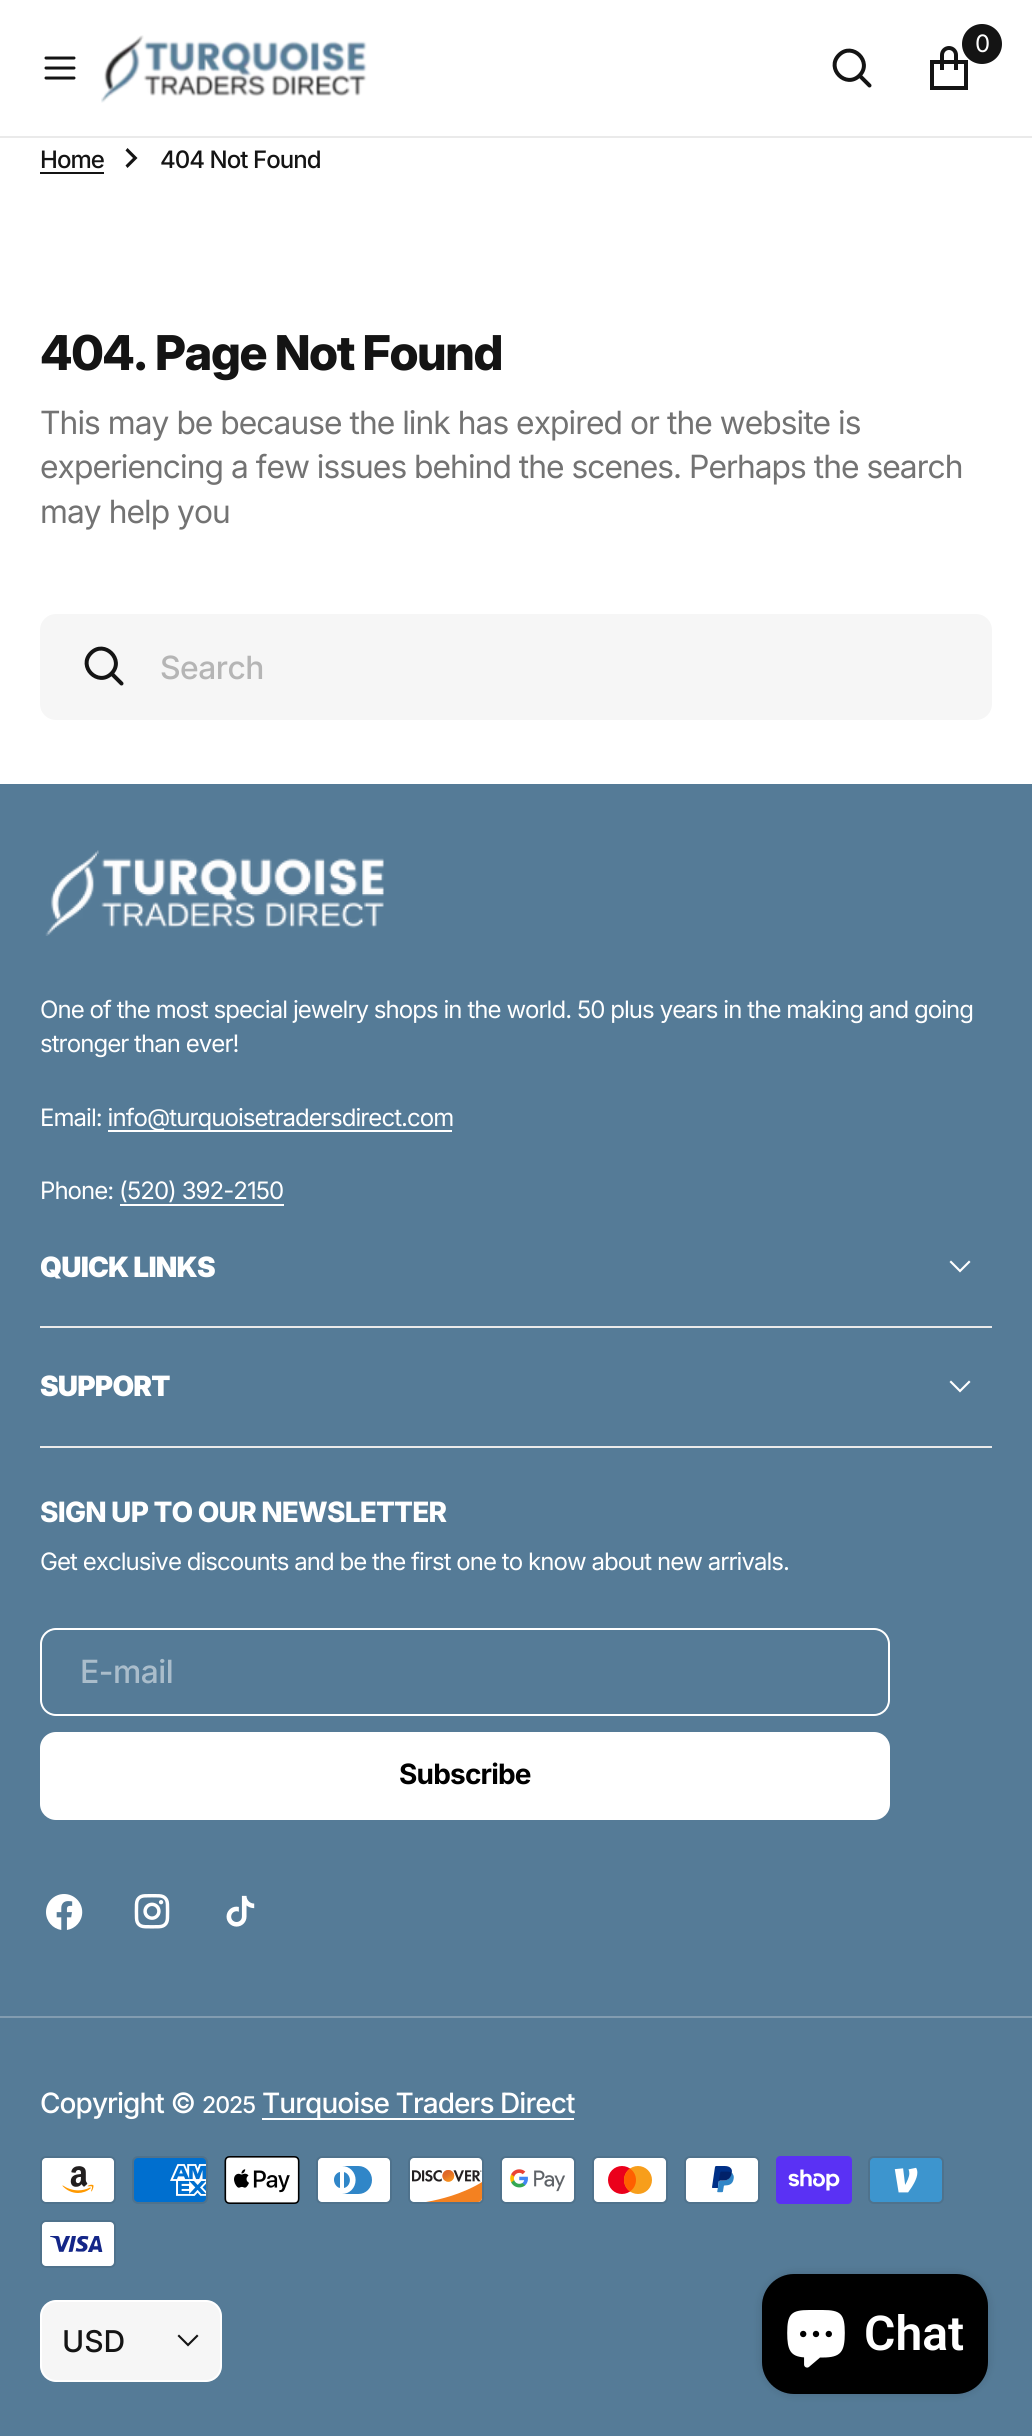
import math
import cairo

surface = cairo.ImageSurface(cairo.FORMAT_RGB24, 1032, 2436)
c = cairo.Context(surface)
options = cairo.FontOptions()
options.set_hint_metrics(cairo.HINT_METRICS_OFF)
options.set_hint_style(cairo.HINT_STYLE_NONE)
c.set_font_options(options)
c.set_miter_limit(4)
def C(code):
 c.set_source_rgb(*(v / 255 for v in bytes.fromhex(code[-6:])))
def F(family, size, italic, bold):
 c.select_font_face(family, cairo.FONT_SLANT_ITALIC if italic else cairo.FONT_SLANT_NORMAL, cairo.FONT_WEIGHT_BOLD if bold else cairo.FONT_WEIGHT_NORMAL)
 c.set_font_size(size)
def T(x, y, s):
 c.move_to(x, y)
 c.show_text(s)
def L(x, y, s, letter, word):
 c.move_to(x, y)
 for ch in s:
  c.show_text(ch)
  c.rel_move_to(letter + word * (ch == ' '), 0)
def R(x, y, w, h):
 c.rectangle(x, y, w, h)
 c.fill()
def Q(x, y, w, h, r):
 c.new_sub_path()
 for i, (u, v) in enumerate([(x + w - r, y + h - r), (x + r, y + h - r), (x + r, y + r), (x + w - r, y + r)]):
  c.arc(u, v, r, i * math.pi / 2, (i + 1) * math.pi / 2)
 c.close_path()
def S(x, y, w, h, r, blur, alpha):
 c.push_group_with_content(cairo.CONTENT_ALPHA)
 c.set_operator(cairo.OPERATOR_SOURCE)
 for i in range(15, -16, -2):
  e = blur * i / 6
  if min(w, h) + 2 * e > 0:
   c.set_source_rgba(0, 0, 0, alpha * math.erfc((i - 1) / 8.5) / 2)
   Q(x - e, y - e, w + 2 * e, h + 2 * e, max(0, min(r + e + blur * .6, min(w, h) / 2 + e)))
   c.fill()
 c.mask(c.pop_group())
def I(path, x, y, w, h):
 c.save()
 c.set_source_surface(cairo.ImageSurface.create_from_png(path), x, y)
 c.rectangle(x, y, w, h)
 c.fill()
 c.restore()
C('ffffff')
c.paint()
C('eaeaea')
R(0,136,1032,2)
c.new_path()
c.move_to(46,68)
c.line_to(74,68)
c.move_to(46,58)
c.line_to(74,58)
c.move_to(46,78)
c.line_to(74,78)
C('141414')
c.set_line_width(3)
c.set_line_cap(cairo.LINE_CAP_ROUND)
c.set_line_join(cairo.LINE_JOIN_ROUND)
c.stroke()
I('1.png',101,35,266,68)
I('2.png',930,46,38,44)
c.arc(982,44,20,0,2 * math.pi)
c.fill()
F('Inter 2',24,0,0)
C('ffffff')
L(975,52,'0',-.95,0)
c.new_path()
c.move_to(869.5,85.5)
c.line_to(859.5,75.5)
c.move_to(859.5,75.5)
c.curve_to(873,62,852.5,41.5,839,55)
c.curve_to(825.5,68.5,846,89,859.5,75.5)
c.close_path()
C('141414')
c.set_line_width(4)
c.stroke()
F('Inter 2 Medium',24,0,0)
L(40,168,'Home',-.95,0)
R(40,172,64,2)
c.new_path()
c.move_to(137.5,158)
c.line_to(127.5,168)
c.line_to(125.5,165.5)
c.line_to(133,158)
c.line_to(125.5,150.5)
c.line_to(127.5,148)
c.close_path()
c.fill()
L(160,168,'404 Not Found',-.95,0)
F('Inter ExtraBold',48,0,0)
L(40,370,'404. Page Not Found',-1.4,0)
F('Inter',32,0,0)
C('737373')
L(40,434,'This may be because the link has expired or the website is',-.95,0)
L(40,478,'experiencing a few issues behind the scenes. Perhaps the search',-.95,0)
L(40,523,'may help you',-.95,0)
C('f6f6f6')
Q(40,614,952,106,16)
c.fill()
c.new_path()
c.move_to(121.5,683.5)
c.line_to(111.5,673.5)
c.move_to(111.5,673.5)
c.curve_to(125,660,104.5,639.5,91,653)
c.curve_to(77.5,666.5,98,687,111.5,673.5)
c.close_path()
C('141414')
c.stroke()
F('Inter Medium',32,0,0)
C('b5b5b5')
L(160,679,'Search',-.5,0)
C('557b97')
R(0,784,1032,1652)
I('3.png',45,850,340,86)
F('Inter 2',24,0,0)
C('ffffff')
L(40,1018,'One of the most special jewelry shops in the world. 50 plus years in the making and going',-.95,0)
L(40,1052,'stronger than ever!',-.95,0)
L(40,1126,'Email: info@turquoisetradersdirect.com',-.95,0)
R(108,1130,344,2)
L(40,1199,'Phone: (520) 392-2150',-.95,0)
R(120,1204,164,2)
C('eaeaea')
R(40,1326,952,2)
F('Inter Black',28,0,0)
C('ffffff')
L(40,1277,'QUICK LINKS',-.8,0)
c.new_path()
c.move_to(960,1269.5)
c.line_to(969,1260.5)
c.line_to(970.5,1262)
c.line_to(960,1272.5)
c.line_to(949.5,1262)
c.line_to(951,1260.5)
c.close_path()
c.fill()
C('eaeaea')
R(40,1446,952,2)
C('ffffff')
L(40,1396,'SUPPORT',-.8,0)
c.new_path()
c.move_to(960,1389.5)
c.line_to(969,1380.5)
c.line_to(970.5,1382)
c.line_to(960,1392.5)
c.line_to(949.5,1382)
c.line_to(951,1380.5)
c.close_path()
c.fill()
F('Inter 2 ExtraBold',28,0,0)
L(40,1522,'SIGN UP TO OUR NEWSLETTER',-.8,0)
F('Inter 2',24,0,0)
L(40,1570,'Get exclusive discounts and be the first one to know about new arrivals.',-.95,0)
Q(41,1629,848,86,15)
c.set_line_width(2)
c.set_line_cap(cairo.LINE_CAP_BUTT)
c.set_line_join(cairo.LINE_JOIN_MITER)
c.stroke()
F('Inter Medium',32,0,0)
C('aabdcb')
L(80,1683,'E-mail',-.5,0)
C('ffffff')
Q(40,1732,850,88,16)
c.fill()
F('Inter',28,0,1)
C('000000')
L(399,1784,'Subscribe',-.8,0)
I('4.png',46,1894,37,36)
I('5.png',134,1894,36,35)
I('6.png',226,1895,29,32)
C('829cb0')
R(0,2016,1032,2)
F('Inter 2 Medium',28,0,0)
C('ffffff')
L(40,2113,'Copyright ©',-.95,0)
F('Inter 2 Medium',23,0,0)
L(202,2113,'2025',-.95,0)
F('Inter 2 Medium',28,0,0)
L(262,2113,'Turquoise Traders Direct',-.95,0)
R(262,2118,312,2)
I('7.png',40,2156,76,48)
I('8.png',132,2156,76,48)
I('9.png',224,2156,76,48)
I('10.png',316,2156,76,48)
I('11.png',408,2156,76,48)
I('12.png',500,2156,76,48)
I('13.png',592,2156,76,48)
I('14.png',684,2156,76,48)
I('15.png',776,2156,76,48)
I('16.png',868,2156,76,48)
I('17.png',40,2220,76,48)
C('f6f6f6')
Q(41,2301,180,80,15)
c.fill_preserve()
C('ffffff')
c.stroke()
F('Inter 2 Medium',30,0,0)
C('141414')
T(62,2352,'USD')
c.new_path()
c.move_to(188,2343.5)
c.line_to(197,2334.5)
c.line_to(198.5,2336)
c.line_to(188,2346.5)
c.line_to(177.5,2336)
c.line_to(179,2334.5)
c.close_path()
c.fill()
C('000000')
S(762,2274,226,120,32,5,.15)
C('000000')
Q(762,2274,226,120,32)
c.fill()
I('18.png',787,2310,58,58)
F('Roboto SemiBold',48,0,0)
C('ffffff')
T(864,2350,'Chat')
surface.write_to_png('o.png')
